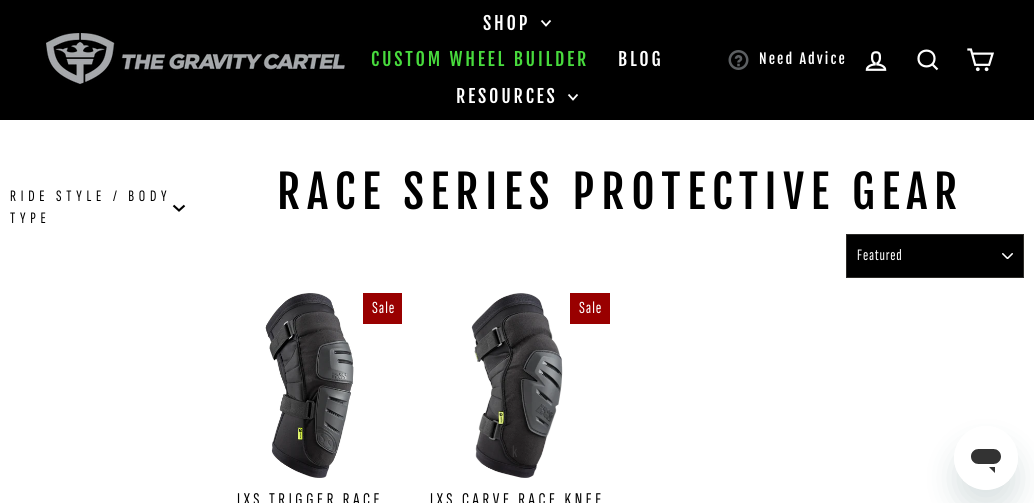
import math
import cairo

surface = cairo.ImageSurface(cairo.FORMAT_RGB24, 1034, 503)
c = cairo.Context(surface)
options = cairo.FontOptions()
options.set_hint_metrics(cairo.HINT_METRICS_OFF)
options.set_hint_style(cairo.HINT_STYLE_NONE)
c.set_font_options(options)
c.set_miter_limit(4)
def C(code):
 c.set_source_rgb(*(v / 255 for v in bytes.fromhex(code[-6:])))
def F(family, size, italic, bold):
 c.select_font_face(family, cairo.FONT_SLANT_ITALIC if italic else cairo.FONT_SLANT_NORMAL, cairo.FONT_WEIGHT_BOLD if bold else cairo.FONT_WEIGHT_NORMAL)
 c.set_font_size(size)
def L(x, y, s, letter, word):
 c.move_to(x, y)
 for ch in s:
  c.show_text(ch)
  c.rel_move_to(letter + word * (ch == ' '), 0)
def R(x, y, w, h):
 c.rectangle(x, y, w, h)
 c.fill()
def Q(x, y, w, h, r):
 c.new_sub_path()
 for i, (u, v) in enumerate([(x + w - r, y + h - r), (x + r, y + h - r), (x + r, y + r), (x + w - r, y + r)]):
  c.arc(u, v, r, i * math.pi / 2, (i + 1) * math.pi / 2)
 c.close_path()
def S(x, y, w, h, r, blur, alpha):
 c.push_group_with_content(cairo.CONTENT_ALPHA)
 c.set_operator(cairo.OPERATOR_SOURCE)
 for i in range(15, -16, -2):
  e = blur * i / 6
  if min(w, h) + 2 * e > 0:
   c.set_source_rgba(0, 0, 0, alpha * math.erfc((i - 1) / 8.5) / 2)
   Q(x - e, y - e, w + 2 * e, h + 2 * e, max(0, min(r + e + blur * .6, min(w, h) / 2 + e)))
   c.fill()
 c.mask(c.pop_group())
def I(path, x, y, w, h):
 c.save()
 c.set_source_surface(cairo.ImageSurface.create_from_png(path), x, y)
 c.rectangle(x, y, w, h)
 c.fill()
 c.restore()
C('000000')
c.paint()
I('1.png',46,33,299,51)
F('Fjalla One',18,0,0)
C('ffffff')
L(483,30,'SHOP',2.75,0)
c.new_path()
c.move_to(541.5,20.5)
c.line_to(546,25.5)
c.line_to(550.5,20.5)
c.set_line_width(1.8)
c.stroke()
C('48db3d')
L(371,66,'CUSTOM WHEEL BUILDER',2.75,0)
C('ffffff')
L(618,66,'BLOG',2.75,0)
L(456,103,'RESOURCES',2.75,0)
c.new_path()
c.move_to(568.5,94.5)
c.line_to(573,99.5)
c.line_to(577.5,94.5)
c.stroke()
I('2.png',728,50,21,20)
F('Fjalla One',14,0,0)
L(759,64,'Need Advice',2.1,0)
I('3.png',865,51,22,20)
c.new_path()
c.move_to(934.5,58.5)
c.curve_to(934.5,69,918.5,69,918.5,58.5)
c.curve_to(918.5,48,934.5,48,934.5,58.5)
c.close_path()
c.move_to(937.5,69.5)
c.line_to(932.5,64.5)
c.set_line_width(2.2)
c.stroke()
I('4.png',967,48,27,24)
R(0,120,1034,383)
F('Sofia Sans Extra Condensed',16,0,0)
C('000000')
L(10,201,'RIDE STYLE / BODY',4.75,0)
c.new_path()
c.move_to(173.5,205.5)
c.line_to(179,210.5)
c.line_to(184.5,205.5)
c.set_line_width(2.1)
c.stroke()
L(10,223,'TYPE',4.75,0)
F('Fjalla One',45,0,0)
L(277,209,'RACE SERIES PROTECTIVE GEAR',6.75,0)
R(847,235,176,42)
I('5.png',1002,253,11,6)
c.rectangle(846.5,234.5,177,43)
C('2b2a27')
c.set_line_width(1)
c.stroke()
F('Sofia Sans Extra Condensed',16,0,0)
C('ffffff')
L(857,260,'Featured',.75,0)
C('990000')
R(363,293,39,31)
F('Sofia Sans Extra Condensed',17,0,0)
C('ffffff')
L(372,313,'Sale',1,0)
I('6.png',265,293,89,185)
F('Sofia Sans Extra Condensed',18,0,0)
C('000000')
L(237,505,'IXS TRIGGER RACE',3.6,0)
C('990000')
R(570,293,40,31)
F('Sofia Sans Extra Condensed',17,0,0)
C('ffffff')
L(579,313,'Sale',1,0)
I('7.png',471,293,92,185)
C('393738')
L(512,457,'k',1,0)
F('Sofia Sans Extra Condensed',18,0,0)
C('000000')
L(430,505,'IXS CARVE RACE KNEE',3.6,0)
c.save()
c.set_fill_rule(cairo.FILL_RULE_EVEN_ODD)
c.new_path()
c.move_to(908,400)
c.line_to(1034,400)
c.line_to(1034,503)
c.line_to(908,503)
c.close_path()
c.move_to(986,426)
c.curve_to(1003.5,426,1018,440.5,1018,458)
c.curve_to(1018,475.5,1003.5,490,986,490)
c.curve_to(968.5,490,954,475.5,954,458)
c.curve_to(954,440.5,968.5,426,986,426)
c.close_path()
c.clip()
C('17494d')
S(954,446,64,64,32,15,.15)
c.restore()
I('8.png',963,449,46,37)
surface.write_to_png('o.png')
